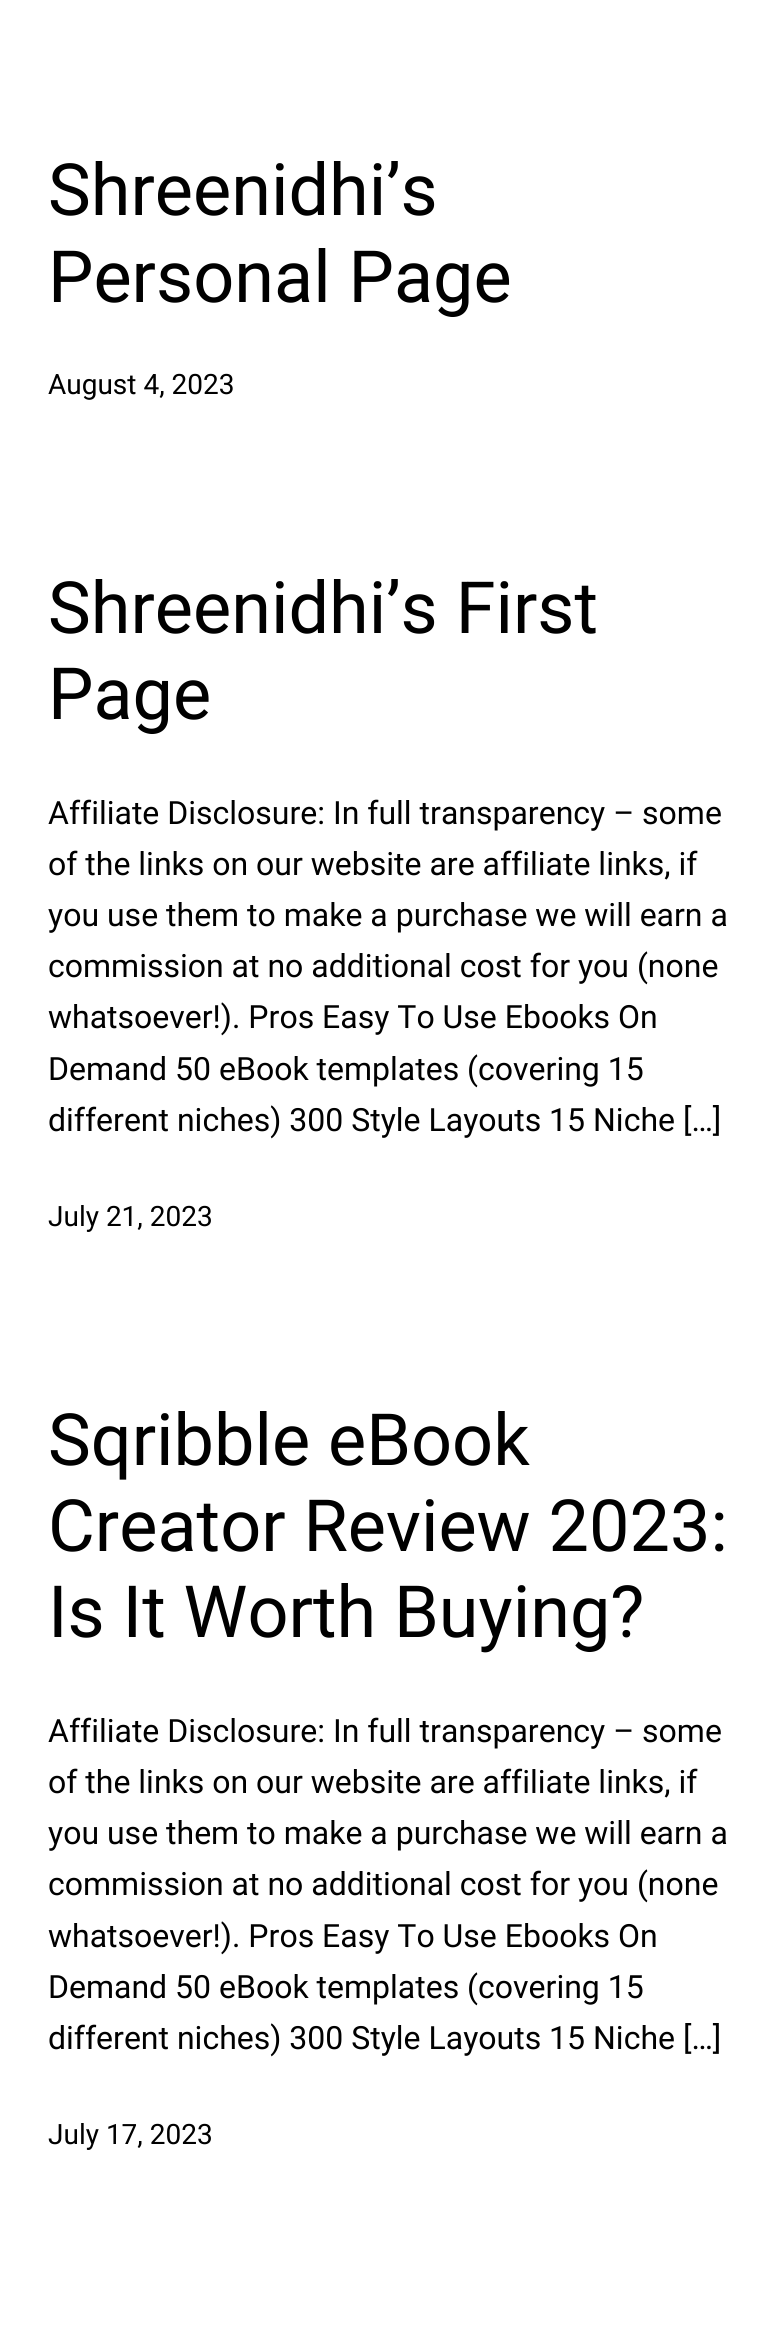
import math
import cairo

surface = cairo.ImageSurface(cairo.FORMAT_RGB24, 778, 2337)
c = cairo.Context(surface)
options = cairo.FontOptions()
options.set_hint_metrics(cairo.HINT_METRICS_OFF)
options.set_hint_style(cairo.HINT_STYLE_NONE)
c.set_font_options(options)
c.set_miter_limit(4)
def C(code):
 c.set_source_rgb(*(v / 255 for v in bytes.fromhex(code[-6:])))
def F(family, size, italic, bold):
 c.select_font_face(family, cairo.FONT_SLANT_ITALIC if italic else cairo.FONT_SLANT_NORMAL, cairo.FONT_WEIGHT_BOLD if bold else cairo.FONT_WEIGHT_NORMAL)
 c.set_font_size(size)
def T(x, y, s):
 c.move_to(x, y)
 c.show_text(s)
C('ffffff')
c.paint()
F('Roboto',72,0,0)
C('000000')
T(48,215,'Shreenidhi’s')
T(48,302,'Personal Page')
F('Roboto',28,0,0)
T(48,394,'August 4, 2023')
F('Roboto',72,0,0)
T(48,633,'Shreenidhi’s First')
T(48,719,'Page')
F('Roboto',32,0,0)
T(48,824,'Affiliate Disclosure: In full transparency – some')
T(48,875,'of the links on our website are affiliate links, if')
T(48,926,'you use them to make a purchase we will earn a')
T(48,977,'commission at no additional cost for you (none')
T(48,1028,'whatsoever!). Pros Easy To Use Ebooks On')
T(48,1080,'Demand 50 eBook templates (covering 15')
T(48,1131,'different niches) 300 Style Layouts 15 Niche […]')
F('Roboto',28,0,0)
T(48,1226,'July 21, 2023')
F('Roboto',72,0,0)
T(48,1465,'Sqribble eBook')
T(48,1551,'Creator Review 2023:')
T(48,1637,'Is It Worth Buying?')
F('Roboto',32,0,0)
T(48,1742,'Affiliate Disclosure: In full transparency – some')
T(48,1793,'of the links on our website are affiliate links, if')
T(48,1844,'you use them to make a purchase we will earn a')
T(48,1895,'commission at no additional cost for you (none')
T(48,1947,'whatsoever!). Pros Easy To Use Ebooks On')
T(48,1998,'Demand 50 eBook templates (covering 15')
T(48,2049,'different niches) 300 Style Layouts 15 Niche […]')
F('Roboto',28,0,0)
T(48,2144,'July 17, 2023')
surface.write_to_png('o.png')
